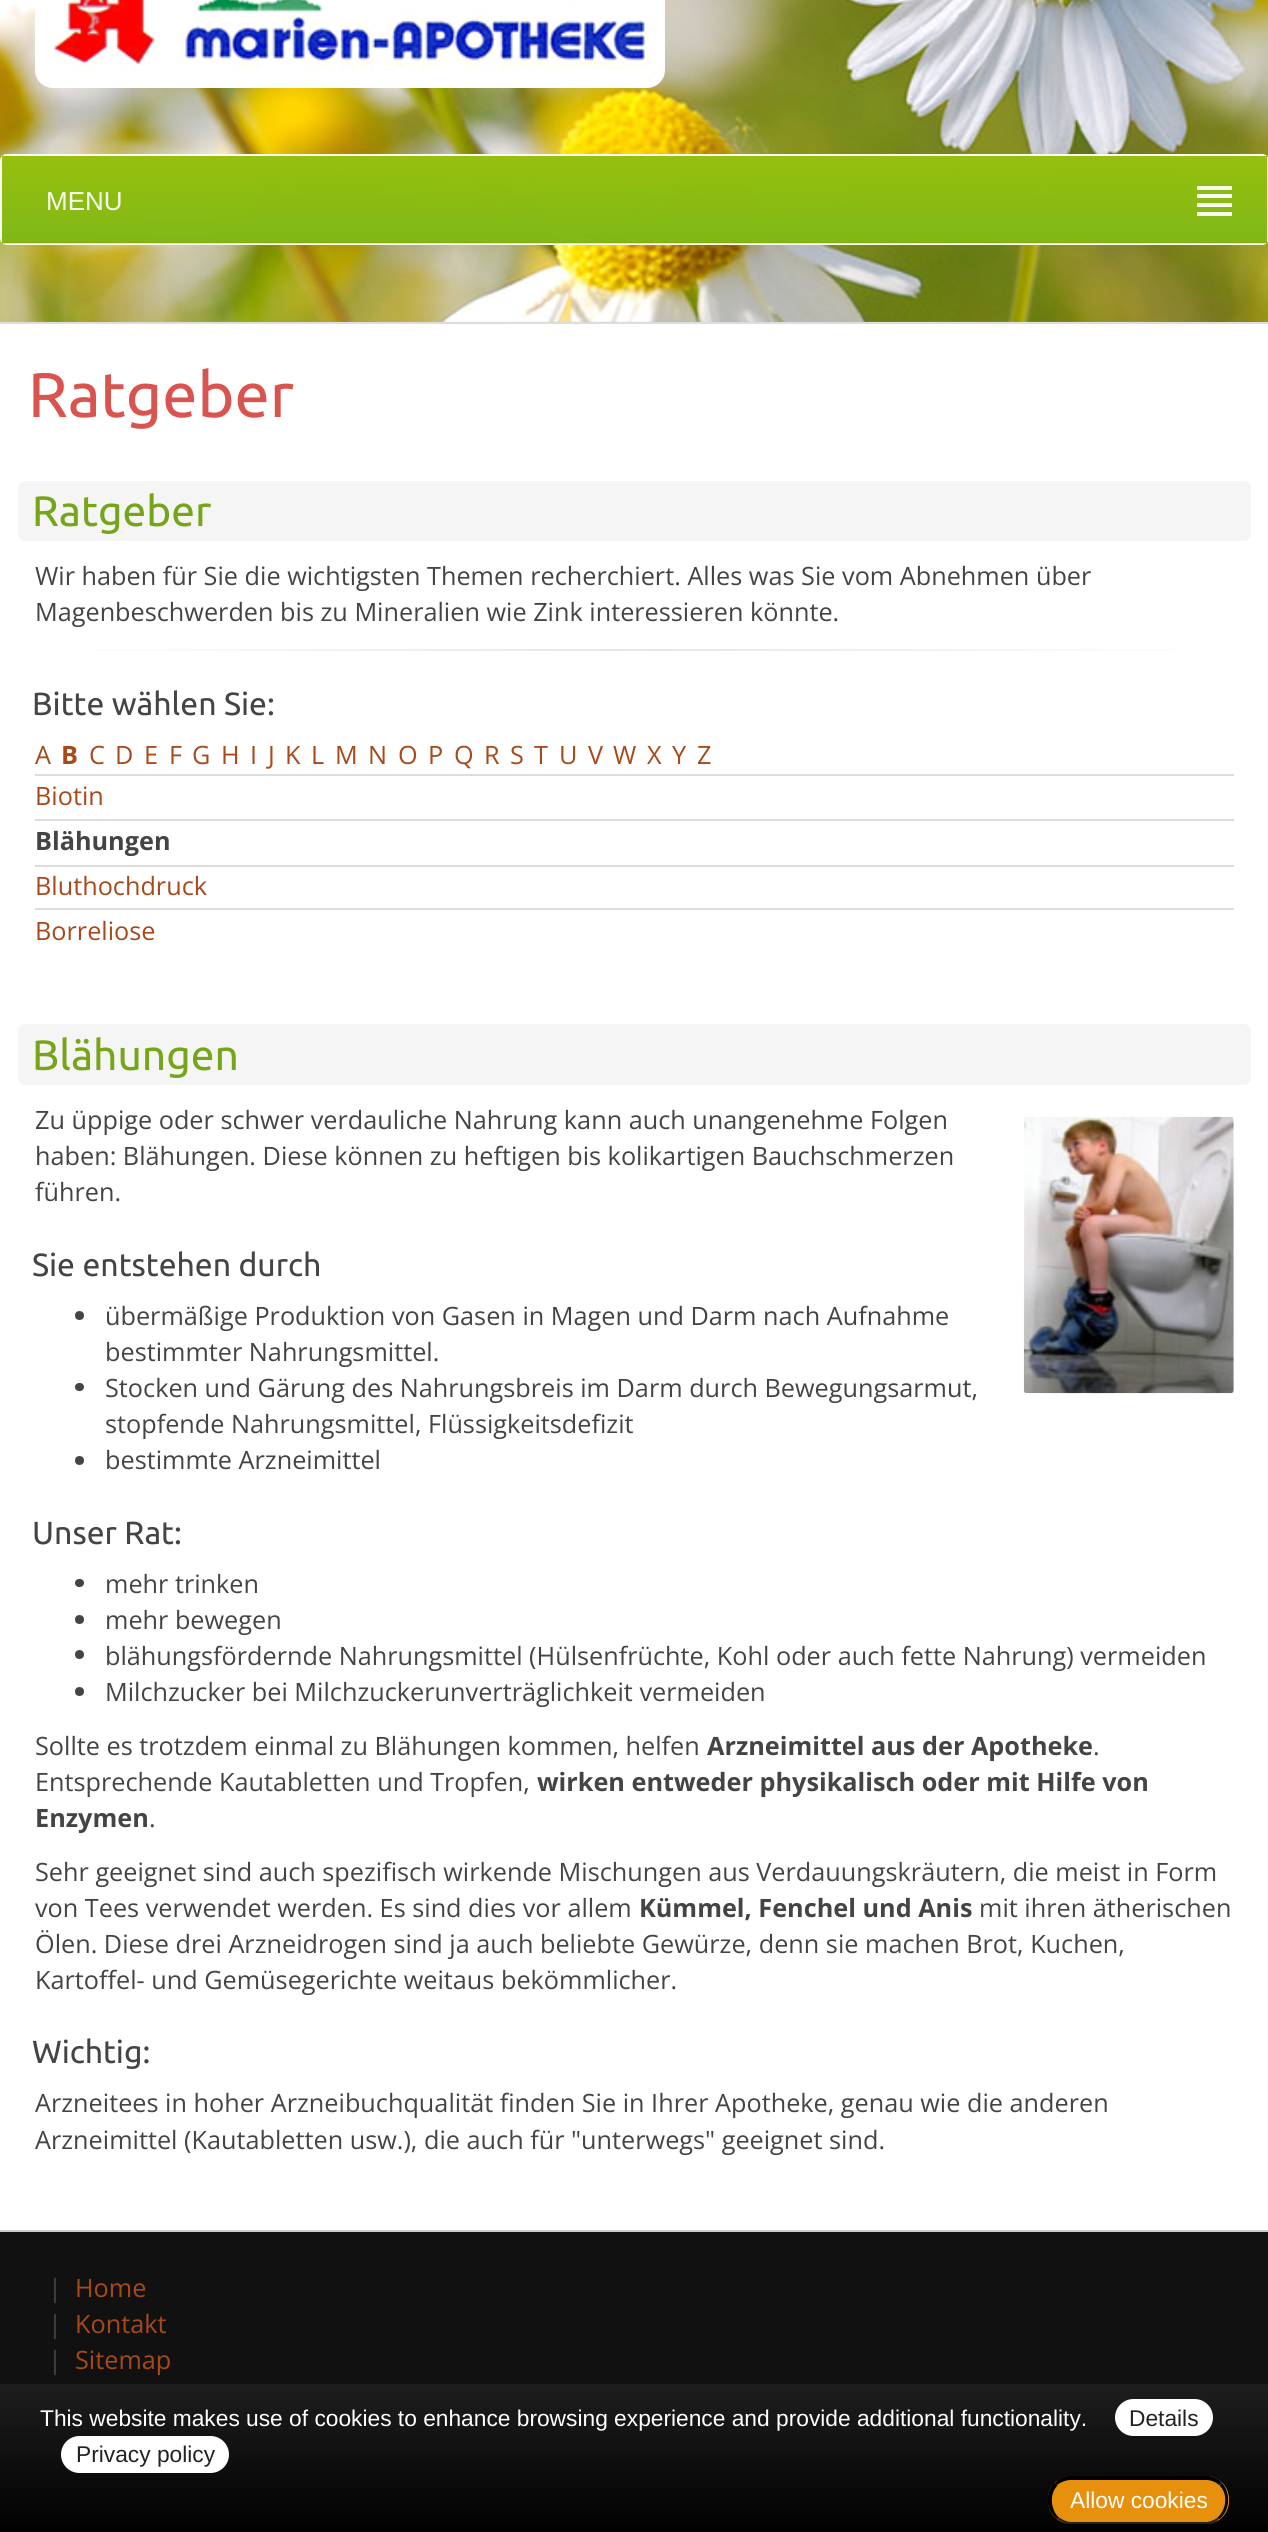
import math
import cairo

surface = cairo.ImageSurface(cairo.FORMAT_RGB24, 1268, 2532)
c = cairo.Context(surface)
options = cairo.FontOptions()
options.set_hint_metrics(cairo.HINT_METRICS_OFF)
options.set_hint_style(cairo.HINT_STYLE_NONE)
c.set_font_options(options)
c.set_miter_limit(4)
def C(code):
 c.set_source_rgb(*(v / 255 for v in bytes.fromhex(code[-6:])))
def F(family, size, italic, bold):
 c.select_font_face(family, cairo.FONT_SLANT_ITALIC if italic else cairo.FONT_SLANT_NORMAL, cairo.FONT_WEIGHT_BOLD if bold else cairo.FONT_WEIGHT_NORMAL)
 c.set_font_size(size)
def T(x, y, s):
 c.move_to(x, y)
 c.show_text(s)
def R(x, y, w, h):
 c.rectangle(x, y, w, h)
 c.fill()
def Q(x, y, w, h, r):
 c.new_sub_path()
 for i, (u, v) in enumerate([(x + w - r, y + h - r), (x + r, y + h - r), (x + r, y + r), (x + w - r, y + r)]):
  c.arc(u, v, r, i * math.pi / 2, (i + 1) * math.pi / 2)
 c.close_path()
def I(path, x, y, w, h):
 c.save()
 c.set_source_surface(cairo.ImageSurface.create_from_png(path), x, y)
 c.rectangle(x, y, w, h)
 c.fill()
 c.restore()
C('ffffff')
c.paint()
I('1.png',0,0,1268,322)
C('dddddd')
R(0,322,1268,2)
Q(39.5,-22.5,621,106,13.5)
C('ffffff')
c.set_line_width(9)
c.stroke()
I('2.png',44,0,612,79)
Q(1,155,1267,89,6)
c.set_source_rgba(1,1,1,0.95)
c.set_line_width(2)
c.stroke()
gradient = cairo.LinearGradient(634,156,634,242)
gradient.add_color_stop_rgba(0,0.588,0.749,0.051,.95)
gradient.add_color_stop_rgba(1,0.502,0.722,0.09,.95)
c.set_source(gradient)
R(2,156,1265,86)
gradient = cairo.LinearGradient(634,241,634,327)
gradient.add_color_stop_rgba(0,0.588,0.749,0.051,.95)
gradient.add_color_stop_rgba(1,0.502,0.722,0.09,.95)
c.set_source(gradient)
R(2,242,1265,1)
c.set_source_rgba(0,0,0,0.1)
R(2,242,1265,2)
F('Liberation Sans',26,0,0)
C('f9fcf3')
T(46,210,'MENU')
R(1197,186,35,4)
R(1197,194,35,4)
R(1197,203,35,4)
R(1197,212,35,4)
F('Ubuntu',63,0,0)
C('d9534f')
T(28,417,'Ratgeber')
C('f5f5f5')
Q(18,481,1233,60,7)
c.fill()
F('Ubuntu',42.5,0,0)
C('76a51a')
T(32,526,'Ratgeber')
F('Open Sans',25.25,0,0)
C('444444')
T(35,585,'Wir haben für Sie die wichtigsten Themen recherchiert. Alles was Sie vom Abnehmen über')
T(35,621,'Magenbeschwerden bis zu Mineralien wie Zink interessieren könnte.')
gradient = cairo.LinearGradient(35,650,1234,650)
gradient.add_color_stop_rgba(0,1,1,1,1)
gradient.add_color_stop_rgba(.5,0.902,0.902,0.902,1)
gradient.add_color_stop_rgba(1,1,1,1,1)
c.set_source(gradient)
R(95,649,1079,2)
F('Ubuntu',32,0,0)
C('444444')
T(32,715,'Bitte wählen Sie:')
F('Open Sans',25.25,0,0)
C('a6491b')
T(35,764,'A')
F('Open Sans',25.25,0,1)
T(61,764,'B')
F('Open Sans',25.25,0,0)
T(89,764,'C')
T(115,764,'D')
T(144,764,'E')
T(169,764,'F')
T(192,764,'G')
T(221,764,'H')
T(250,764,'I')
T(268,764,'J')
T(285,764,'K')
T(311,764,'L')
T(335,764,'M')
T(368,764,'N')
T(398,764,'O')
T(428,764,'P')
T(454,764,'Q')
T(484,764,'R')
T(510,764,'S')
T(534,764,'T')
T(559,764,'U')
T(588,764,'V')
T(613,764,'W')
T(647,764,'X')
T(672,764,'Y')
T(697,764,'Z')
C('dddddd')
R(35,774,1199,2)
C('a6491b')
T(35,805,'Biotin')
C('dddddd')
R(35,819,1199,2)
F('Open Sans',25.25,0,1)
C('444444')
T(35,850,'Blähungen')
C('dddddd')
R(35,865,1199,2)
F('Open Sans',25.25,0,0)
C('a6491b')
T(35,895,'Bluthochdruck')
C('dddddd')
R(35,908,1199,2)
C('a6491b')
T(35,940,'Borreliose')
C('f5f5f5')
Q(18,1024,1233,61,7)
c.fill()
F('Ubuntu',42.5,0,0)
C('76a51a')
T(32,1070,'Blähungen')
F('Open Sans',25.25,0,0)
C('444444')
T(35,1129,'Zu üppige oder schwer verdauliche Nahrung kann auch unangenehme Folgen')
T(35,1165,'haben: Blähungen. Diese können zu heftigen bis kolikartigen Bauchschmerzen')
T(35,1201,'führen.')
I('3.png',1023,1116,211,278)
F('Ubuntu',32,0,0)
T(32,1276,'Sie entstehen durch')
c.new_path()
c.arc(79.5,1315.5,4.5,0,2 * math.pi)
c.fill()
F('Open Sans',25.25,0,0)
T(105,1325,'übermäßige Produktion von Gasen in Magen und Darm nach Aufnahme')
T(105,1361,'bestimmter Nahrungsmittel.')
Q(75,1383,9,8,4)
c.fill()
T(105,1397,'Stocken und Gärung des Nahrungsbreis im Darm durch Bewegungsarmut,')
T(105,1433,'stopfende Nahrungsmittel, Flüssigkeitsdefizit')
c.new_path()
c.arc(79.5,1460.5,4.5,0,2 * math.pi)
c.fill()
T(105,1469,'bestimmte Arzneimittel')
F('Ubuntu',32,0,0)
T(32,1544,'Unser Rat:')
Q(75,1579,9,8,4)
c.fill()
F('Open Sans',25.25,0,0)
T(105,1593,'mehr trinken')
c.new_path()
c.arc(79.5,1619.5,4.5,0,2 * math.pi)
c.fill()
T(105,1629,'mehr bewegen')
c.new_path()
c.arc(79.5,1654.5,4.5,0,2 * math.pi)
c.fill()
T(105,1665,'blähungsfördernde Nahrungsmittel (Hülsenfrüchte, Kohl oder auch fette Nahrung) vermeiden')
c.new_path()
c.arc(79.5,1691.5,4.5,0,2 * math.pi)
c.fill()
T(105,1701,'Milchzucker bei Milchzuckerunverträglichkeit vermeiden')
T(35,1755,'Sollte es trotzdem einmal zu Blähungen kommen, helfen')
F('Open Sans',25.25,0,1)
T(707,1755,'Arzneimittel aus der Apotheke')
F('Open Sans',25.25,0,0)
T(1093,1755,'.')
T(35,1791,'Entsprechende Kautabletten und Tropfen,')
F('Open Sans',25.25,0,1)
T(537,1791,'wirken entweder physikalisch oder mit Hilfe von')
T(35,1827,'Enzymen')
F('Open Sans',25.25,0,0)
T(149,1827,'.')
T(35,1881,'Sehr geeignet sind auch spezifisch wirkende Mischungen aus Verdauungskräutern, die meist in Form')
T(35,1917,'von Tees verwendet werden. Es sind dies vor allem')
F('Open Sans',25.25,0,1)
T(639,1917,'Kümmel, Fenchel und Anis')
F('Open Sans',25.25,0,0)
T(979,1917,'mit ihren ätherischen')
T(35,1953,'Ölen. Diese drei Arzneidrogen sind ja auch beliebte Gewürze, denn sie machen Brot, Kuchen,')
T(35,1989,'Kartoffel- und Gemüsegerichte weitaus bekömmlicher.')
F('Ubuntu',32,0,0)
T(32,2063,'Wichtig:')
F('Open Sans',25.25,0,0)
T(35,2112,'Arzneitees in hoher Arzneibuchqualität finden Sie in Ihrer Apotheke, genau wie die anderen')
T(35,2149,'Arzneimittel (Kautabletten usw.), die auch für "unterwegs" geeignet sind.')
C('111111')
R(0,2232,1268,300)
C('cccccc')
R(0,2230,1268,2)
C('444444')
T(48,2297,'|')
C('a6491b')
T(75,2297,'Home')
C('444444')
T(48,2333,'|')
C('a6491b')
T(75,2333,'Kontakt')
C('444444')
T(48,2369,'|')
C('a6491b')
T(75,2369,'Sitemap')
gradient = cairo.LinearGradient(634,2384,634,2532)
gradient.add_color_stop_rgba(0,0.118,0.118,0.118,.95)
gradient.add_color_stop_rgba(1,0,0,0,.95)
c.set_source(gradient)
R(0,2384,1268,148)
F('Liberation Sans',22.75,0,0)
C('ffffff')
T(40,2426,'This website makes use of cookies to enhance browsing experience and provide additional functionality.')
Q(1115,2399,98,37,18.5)
c.fill()
C('222222')
T(1129,2426,'Details')
C('ffffff')
Q(61,2436,168,37,18.5)
c.fill()
C('222222')
T(76,2462,'Privacy policy')
C('e6900e')
Q(1048,2476,181,48,23)
c.fill()
C('000000')
c.new_path()
c.move_to(1071,2480)
c.curve_to(1066,2480,1061,2482,1057,2485)
c.line_to(1055,2483)
c.curve_to(1058,2479,1062,2477,1067,2476)
c.line_to(1209,2476)
c.curve_to(1214,2477,1219,2479,1222,2483)
c.line_to(1219,2485)
c.curve_to(1216,2482,1211,2480,1206,2480)
c.close_path()
c.fill()
c.new_path()
c.move_to(1222,2483)
c.curve_to(1231,2493,1230,2510.5,1219.5,2519)
c.line_to(1217,2518)
c.curve_to(1226.5,2510,1228.5,2494,1219.5,2485.5)
c.close_path()
c.fill()
C('222222')
c.new_path()
c.move_to(1066,2524)
c.curve_to(1063,2523,1060,2521,1057,2519)
c.line_to(1060,2518)
c.curve_to(1063,2520,1067,2522,1071,2522)
c.line_to(1206,2522)
c.curve_to(1210,2522,1214,2520,1217,2518)
c.line_to(1219,2519)
c.curve_to(1217,2521,1214,2523,1210,2524)
c.close_path()
c.fill()
C('000000')
c.new_path()
c.move_to(1048,2495.5)
c.curve_to(1049,2490.5,1051.5,2486,1054.5,2482.5)
c.line_to(1057.5,2485.5)
c.curve_to(1049,2494,1050.5,2510.5,1059.5,2518)
c.line_to(1057,2519)
c.curve_to(1052.5,2515.5,1049,2510,1048,2504.5)
c.close_path()
c.fill()
C('ffffff')
T(1070,2508,'Allow cookies')
surface.write_to_png('o.png')
